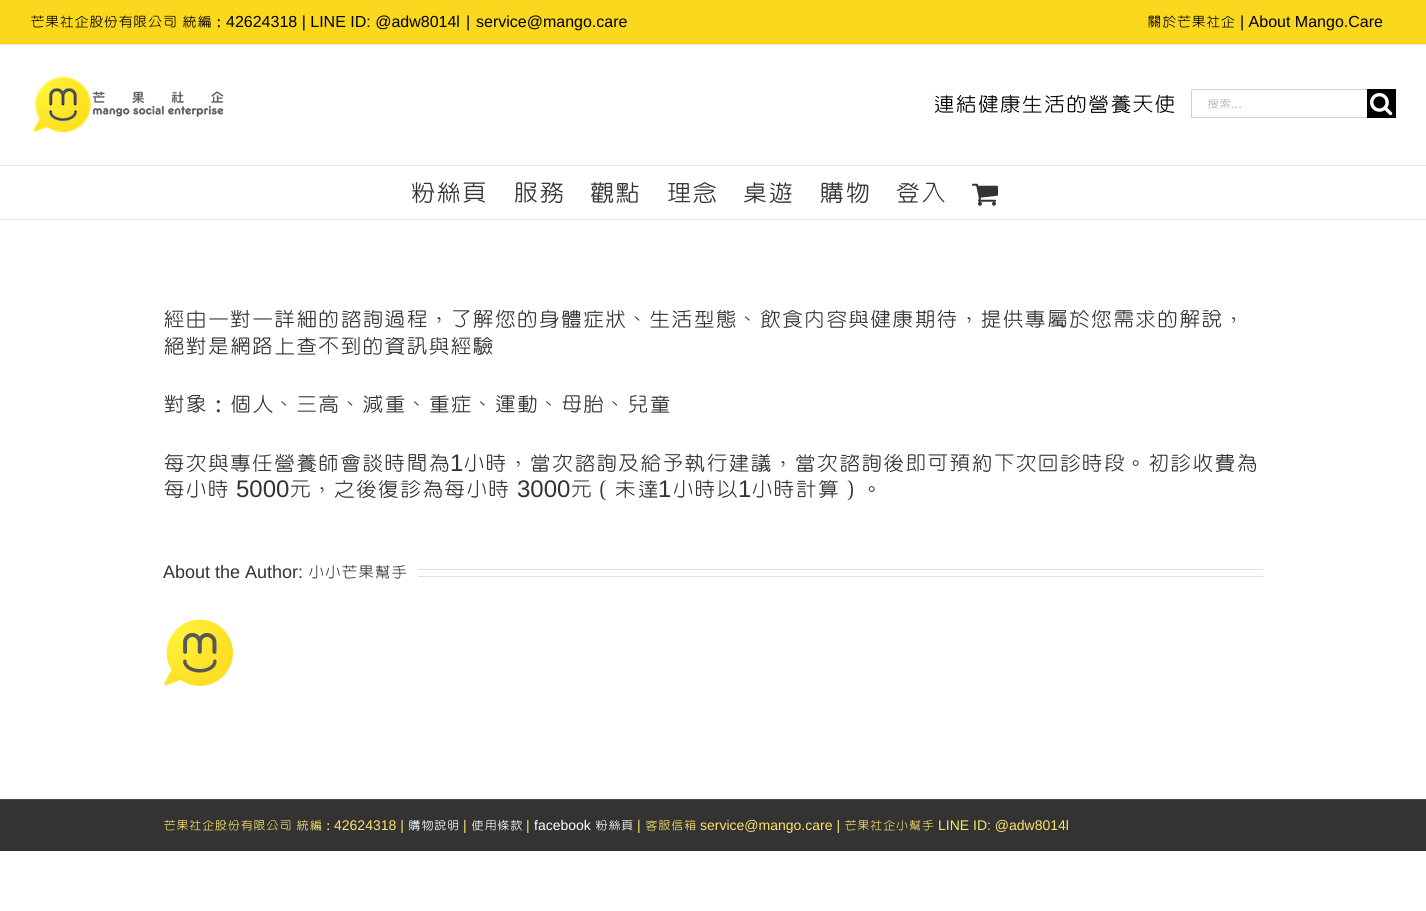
import math
import cairo

surface = cairo.ImageSurface(cairo.FORMAT_RGB24, 1426, 911)
c = cairo.Context(surface)
options = cairo.FontOptions()
options.set_hint_metrics(cairo.HINT_METRICS_OFF)
options.set_hint_style(cairo.HINT_STYLE_NONE)
c.set_font_options(options)
c.set_miter_limit(4)
def C(code):
 c.set_source_rgb(*(v / 255 for v in bytes.fromhex(code[-6:])))
def F(family, size, italic, bold):
 c.select_font_face(family, cairo.FONT_SLANT_ITALIC if italic else cairo.FONT_SLANT_NORMAL, cairo.FONT_WEIGHT_BOLD if bold else cairo.FONT_WEIGHT_NORMAL)
 c.set_font_size(size)
def T(x, y, s):
 c.move_to(x, y)
 c.show_text(s)
def R(x, y, w, h):
 c.rectangle(x, y, w, h)
 c.fill()
def I(path, x, y, w, h):
 c.save()
 c.set_source_surface(cairo.ImageSurface.create_from_png(path), x, y)
 c.rectangle(x, y, w, h)
 c.fill()
 c.restore()
C('ffffff')
c.paint()
C('f9d81d')
R(0,0,1426,44)
C('e5e5e5')
R(0,44,1426,1)
F('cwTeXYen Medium',16,0,0)
C('000000')
T(30,27,'芒果社企股份有限公司')
T(182,27,'統編：')
F('Liberation Sans',16,0,0)
T(226,27,'42624318 | LINE ID: @adw8014l')
T(466,27,'|')
T(476,27,'service@mango.care')
F('cwTeXYen Medium',16,0,0)
T(1147,27,'關於芒果社企')
F('Liberation Sans',16,0,0)
T(1240,27,'| About Mango.Care')
C('e5e5e5')
R(0,165,1426,1)
I('1.png',33,76,191,57)
F('cwTeXYen Medium',24,0,0)
C('000000')
T(933,112,'連結健康生活的營養天使')
C('d2d2d2')
R(1191,89,176,1)
R(1191,117,176,1)
R(1191,89,1,29)
F('cwTeXYen Medium',13,0,0)
C('aaa9a9')
T(1207,108,'搜索')
F('Liberation Sans',13,0,0)
T(1231,108,'...')
C('000000')
R(1367,89,29,29)
I('2.png',1370,92,23,24)
C('e5e5e5')
R(0,219,1426,1)
F('cwTeXYen Medium',28,0,0)
C('333333')
T(410,202,'粉絲頁')
T(513,202,'服務')
T(589,202,'觀點')
T(666,202,'理念')
T(742,202,'桌遊')
T(819,202,'購物')
T(895,202,'登入')
I('3.png',972,183,26,23)
F('cwTeXYen Medium',24,0,0)
T(163,327,'經由一對一詳細的諮詢過程，了解您的身體症狀、生活型態、飲食內容與健康期待，提供專屬於您需求的解說，')
T(163,354,'絕對是網路上查不到的資訊與經驗')
T(163,412,'對象：個人、三高、減重、重症、運動、母胎、兒童')
T(163,471,'每次與專任營養師會談時間為')
F('Liberation Sans',24,0,0)
T(450,471,'1')
F('cwTeXYen Medium',24,0,0)
T(463,471,'小時，當次諮詢及給予執行建議，當次諮詢後即可預約下次回診時段。初診收費為')
T(163,497,'每小時')
F('Liberation Sans',24,0,0)
T(236,497,'5000')
F('cwTeXYen Medium',24,0,0)
T(289,497,'元，之後復診為每小時')
F('Liberation Sans',24,0,0)
T(517,497,'3000')
F('cwTeXYen Medium',24,0,0)
T(570,497,'元（未達')
F('Liberation Sans',24,0,0)
T(658,497,'1')
F('cwTeXYen Medium',24,0,0)
T(672,497,'小時以')
F('Liberation Sans',24,0,0)
T(738,497,'1')
F('cwTeXYen Medium',24,0,0)
T(751,497,'小時計算）。')
F('Liberation Sans',18,0,0)
T(163,578,'About the Author:')
F('cwTeXYen Medium',18,0,0)
T(308,578,'小小芒果幫手')
C('e0dede')
R(418,569,845,1)
R(418,576,845,1)
I('4.png',164,619,70,67)
C('333333')
R(0,800,1426,51)
C('4b4c4d')
R(0,799,1426,1)
F('cwTeXYen Medium',14,0,0)
C('fae46c')
T(163,830,'芒果社企股份有限公司')
T(296,830,'統編：')
F('Liberation Sans',14,0,0)
T(334,830,'42624318 |')
F('cwTeXYen Medium',14,0,0)
C('ffffff')
T(408,830,'購物說明')
F('Liberation Sans',14,0,0)
C('fae46c')
T(463,830,'|')
F('cwTeXYen Medium',14,0,0)
C('ffffff')
T(471,830,'使用條款')
F('Liberation Sans',14,0,0)
C('fae46c')
T(526,830,'|')
C('ffffff')
T(534,830,'facebook')
F('cwTeXYen Medium',14,0,0)
T(595,830,'粉絲頁')
F('Liberation Sans',14,0,0)
C('fae46c')
T(637,830,'|')
F('cwTeXYen Medium',14,0,0)
T(645,830,'客服信箱')
F('Liberation Sans',14,0,0)
T(700,830,'service@mango.care |')
F('cwTeXYen Medium',14,0,0)
T(844,830,'芒果社企小幫手')
F('Liberation Sans',14,0,0)
T(938,830,'LINE ID: @adw8014l')
surface.write_to_png('o.png')
